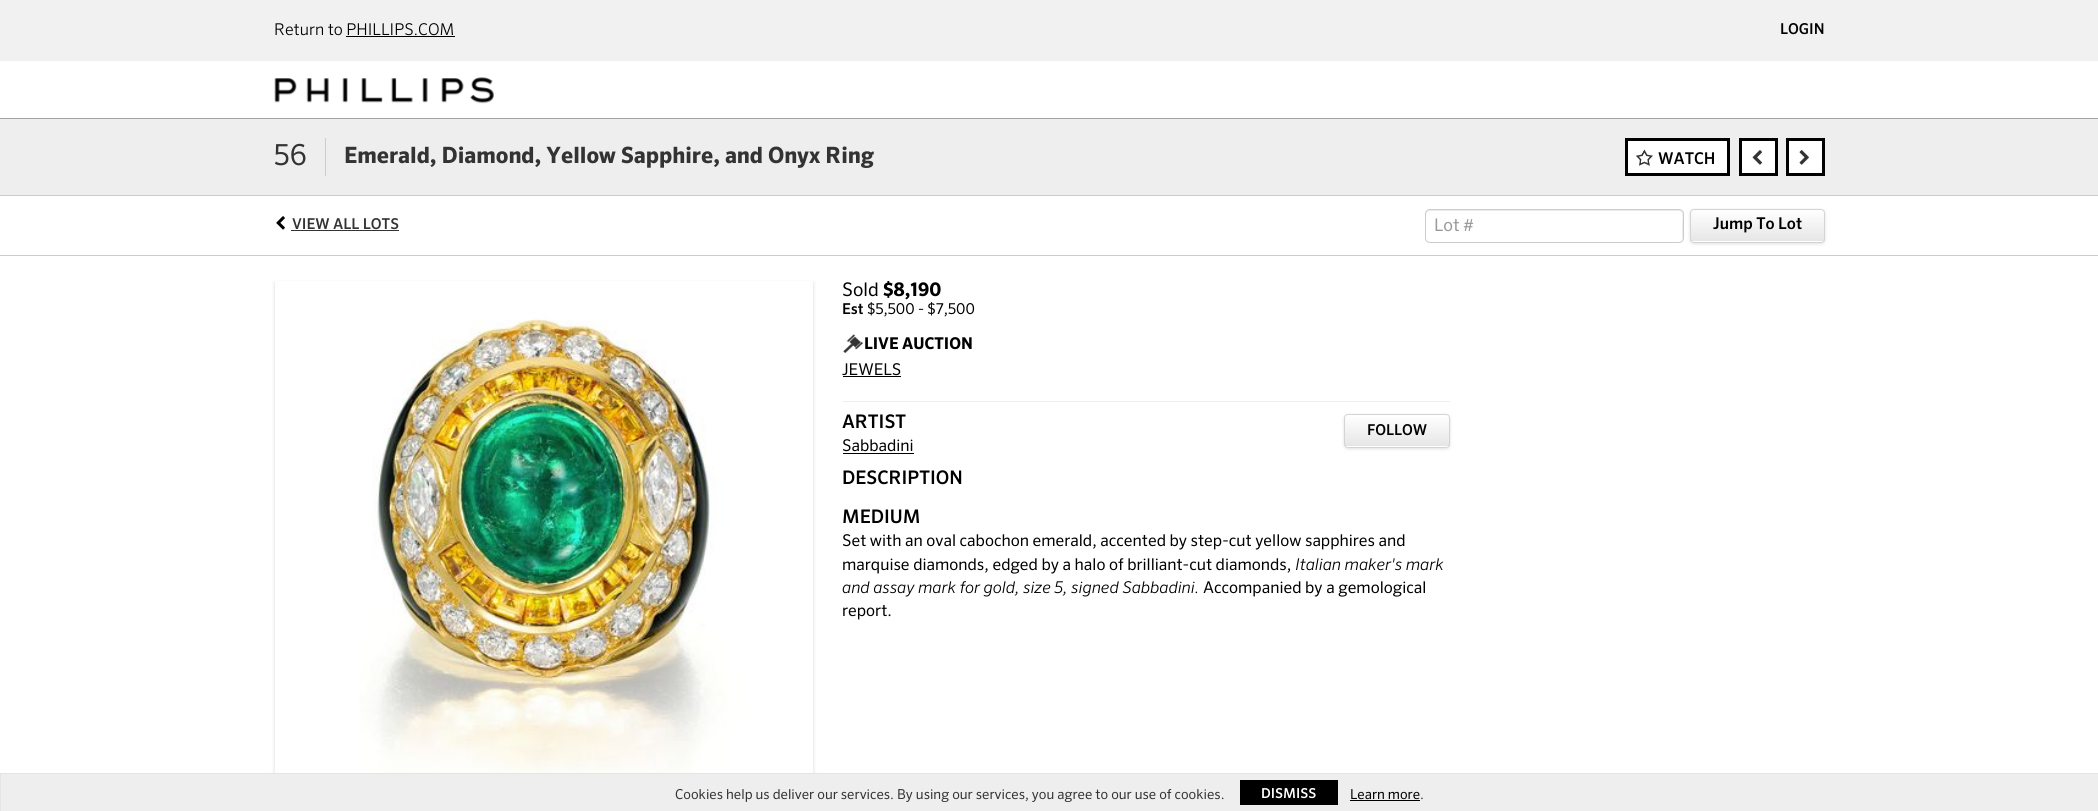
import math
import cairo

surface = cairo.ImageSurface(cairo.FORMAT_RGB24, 2098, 811)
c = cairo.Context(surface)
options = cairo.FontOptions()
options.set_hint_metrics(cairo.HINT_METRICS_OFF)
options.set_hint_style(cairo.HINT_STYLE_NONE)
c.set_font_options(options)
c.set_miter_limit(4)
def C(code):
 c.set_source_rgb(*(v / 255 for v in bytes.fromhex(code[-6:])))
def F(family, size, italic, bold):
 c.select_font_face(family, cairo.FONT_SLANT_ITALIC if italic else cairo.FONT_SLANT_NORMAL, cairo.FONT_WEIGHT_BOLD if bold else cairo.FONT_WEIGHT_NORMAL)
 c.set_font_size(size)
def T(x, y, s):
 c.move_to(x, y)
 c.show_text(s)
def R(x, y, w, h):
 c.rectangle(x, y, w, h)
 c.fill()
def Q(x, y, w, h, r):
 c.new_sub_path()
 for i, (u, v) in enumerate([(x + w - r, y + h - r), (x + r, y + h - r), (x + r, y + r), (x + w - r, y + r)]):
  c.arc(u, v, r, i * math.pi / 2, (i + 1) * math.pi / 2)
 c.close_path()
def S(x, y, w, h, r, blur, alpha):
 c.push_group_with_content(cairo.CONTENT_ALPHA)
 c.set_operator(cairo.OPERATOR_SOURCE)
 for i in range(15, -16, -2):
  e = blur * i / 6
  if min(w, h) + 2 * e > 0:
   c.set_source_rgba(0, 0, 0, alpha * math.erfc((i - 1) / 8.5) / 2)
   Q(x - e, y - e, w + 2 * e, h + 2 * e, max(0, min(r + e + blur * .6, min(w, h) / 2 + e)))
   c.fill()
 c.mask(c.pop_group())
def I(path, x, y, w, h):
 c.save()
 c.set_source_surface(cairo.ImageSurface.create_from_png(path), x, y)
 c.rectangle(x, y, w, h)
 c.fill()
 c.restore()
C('ffffff')
c.paint()
C('a3a3a3')
R(0,118,2098,1)
C('f1f1f1')
R(0,0,2098,61)
F('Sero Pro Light',16.25,0,0)
C('000000')
T(274,35,'Return to PHILLIPS.COM')
R(346,36,109,1)
F('Sero Pro Medium',15,0,0)
T(1780,34,'LOGIN')
I('1.png',274,77,220,27)
C('eeeeee')
R(0,119,2098,76)
C('cccccc')
R(0,195,2098,1)
F('Sero Pro',29,0,0)
C('333333')
T(274,165,'56')
C('cccccc')
R(325,138,1,38)
F('Sero Pro',22.5,0,1)
C('333333')
T(344,163,'Emerald, Diamond, Yellow Sapphire, and Onyx Ring')
C('ffffff')
c.rectangle(1626.5,139.5,102,35)
c.fill_preserve()
C('000000')
c.set_line_width(3)
c.stroke()
I('2.png',1636,149,17,17)
F('Sero Pro Medium',16.25,0,0)
T(1658,164,'WATCH')
C('ffffff')
c.rectangle(1740.5,139.5,36,35)
c.fill_preserve()
C('000000')
c.stroke()
I('3.png',1752,150,10,15)
C('ffffff')
c.rectangle(1787.5,139.5,36,35)
c.fill_preserve()
C('000000')
c.stroke()
I('4.png',1799,150,10,15)
I('5.png',276,216,9,14)
F('Sero Pro Medium',15,0,0)
C('333333')
T(292,229,'VIEW ALL LOTS')
R(291,230,108,1)
C('ececec')
c.new_path()
c.move_to(1430,211)
c.line_to(1679,211)
c.curve_to(1684,211,1682,221,1682,223)
c.line_to(1682,240)
c.curve_to(1683,239,1683,238,1683,237)
c.line_to(1683,214)
c.curve_to(1683,212,1681,210,1679,210)
c.line_to(1430,210)
c.curve_to(1428,210,1426,212,1426,214)
c.line_to(1426,215)
c.curve_to(1426,213,1428,211,1430,211)
c.close_path()
c.fill()
Q(1425.5,209.5,258,33,4.5)
C('cccccc')
c.set_line_width(1)
c.stroke()
F('Sero Pro',17.5,0,0)
C('999999')
T(1434,231,'Lot #')
C('000000')
S(1691,211,133,32,2.5,2,.2)
c.save()
Q(1690,209,135,34,4)
c.clip()
gradient = cairo.LinearGradient(1758,210,1758,241)
gradient.add_color_stop_rgba(0,1,1,1,1)
gradient.add_color_stop_rgba(1,0.902,0.902,0.902,1)
c.set_source(gradient)
R(1690,210,135,31)
gradient = cairo.LinearGradient(1758,241,1758,273)
gradient.add_color_stop_rgba(0,1,1,1,1)
gradient.add_color_stop_rgba(1,0.902,0.902,0.902,1)
c.set_source(gradient)
R(1690,241,135,2)
c.restore()
Q(1690.5,209.5,134,33,3.5)
C('d4d4d4')
c.stroke()
F('Sero Pro Medium',16.25,0,0)
C('000000')
T(1713,229,'Jump To Lot')
C('cccccc')
R(0,255,2098,1)
c.save()
c.set_fill_rule(cairo.FILL_RULE_EVEN_ODD)
c.new_path()
c.move_to(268,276)
c.line_to(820,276)
c.line_to(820,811)
c.line_to(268,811)
c.close_path()
c.move_to(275,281)
c.line_to(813,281)
c.line_to(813,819)
c.line_to(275,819)
c.close_path()
c.clip()
C('dad9d7')
S(275,283,538,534,0,2,1)
c.restore()
I('6.png',359,284,454,489)
F('Sero Pro',18.75,0,0)
C('000000')
T(842,296,'Sold')
F('Sero Pro',18.75,0,1)
T(883,296,'$8,190')
F('Sero Pro Medium',15,0,0)
T(842,314,'Est')
F('Sero Pro',15,0,0)
T(867,314,'$5,500 - $7,500')
I('7.png',843,334,20,19)
F('Sero Pro',16.25,0,1)
T(864,349,'LIVE AUCTION')
F('Sero Pro',16.25,0,0)
T(842,375,'JEWELS')
R(843,376,58,1)
C('eeeeee')
R(843,401,607,1)
F('Sero Pro Medium',18.75,0,0)
C('000000')
T(842,428,'ARTIST')
C('000000')
S(1345,416,104,32,2.5,2,.2)
c.save()
Q(1344,414,106,34,4)
c.clip()
gradient = cairo.LinearGradient(1397,415,1397,446)
gradient.add_color_stop_rgba(0,1,1,1,1)
gradient.add_color_stop_rgba(1,0.902,0.902,0.902,1)
c.set_source(gradient)
R(1344,415,106,31)
gradient = cairo.LinearGradient(1397,446,1397,478)
gradient.add_color_stop_rgba(0,1,1,1,1)
gradient.add_color_stop_rgba(1,0.902,0.902,0.902,1)
c.set_source(gradient)
R(1344,446,106,2)
c.restore()
Q(1344.5,414.5,105,33,3.5)
C('d4d4d4')
c.stroke()
F('Sero Pro Medium',15,0,0)
C('000000')
T(1367,435,'FOLLOW')
F('Sero Pro',16.25,0,0)
T(842,451,'Sabbadini')
R(843,453,71,1)
F('Sero Pro Medium',18.75,0,0)
T(842,484,'DESCRIPTION')
T(842,523,'MEDIUM')
F('Sero Pro',16.25,0,0)
T(842,546,'Set with an oval cabochon emerald, accented by step-cut yellow sapphires and')
T(842,570,'marquise diamonds, edged by a halo of brilliant-cut diamonds,')
F('Sero Pro Light',16.25,1,0)
T(1295,570,'Italian maker\'s mark')
T(842,593,'and assay mark for gold, size 5, signed Sabbadini.')
F('Sero Pro',16.25,0,0)
T(1203,593,'Accompanied by a gemological')
T(842,616,'report.')
C('eeeeee')
R(1,774,2097,37)
C('e4e4e4')
R(0,773,2098,1)
R(0,773,1,38)
F('Sero Pro',13.75,0,0)
C('333333')
T(675,799,'Cookies help us deliver our services. By using our services, you agree to our use of cookies.')
C('000000')
R(1240,780,98,25)
F('Sero Pro Medium',13.75,0,0)
C('ffffff')
T(1261,798,'DISMISS')
F('Sero Pro',13.75,0,0)
C('000000')
T(1350,799,'Learn more')
R(1350,800,70,1)
C('333333')
T(1420,799,'.')
surface.write_to_png('o.png')
